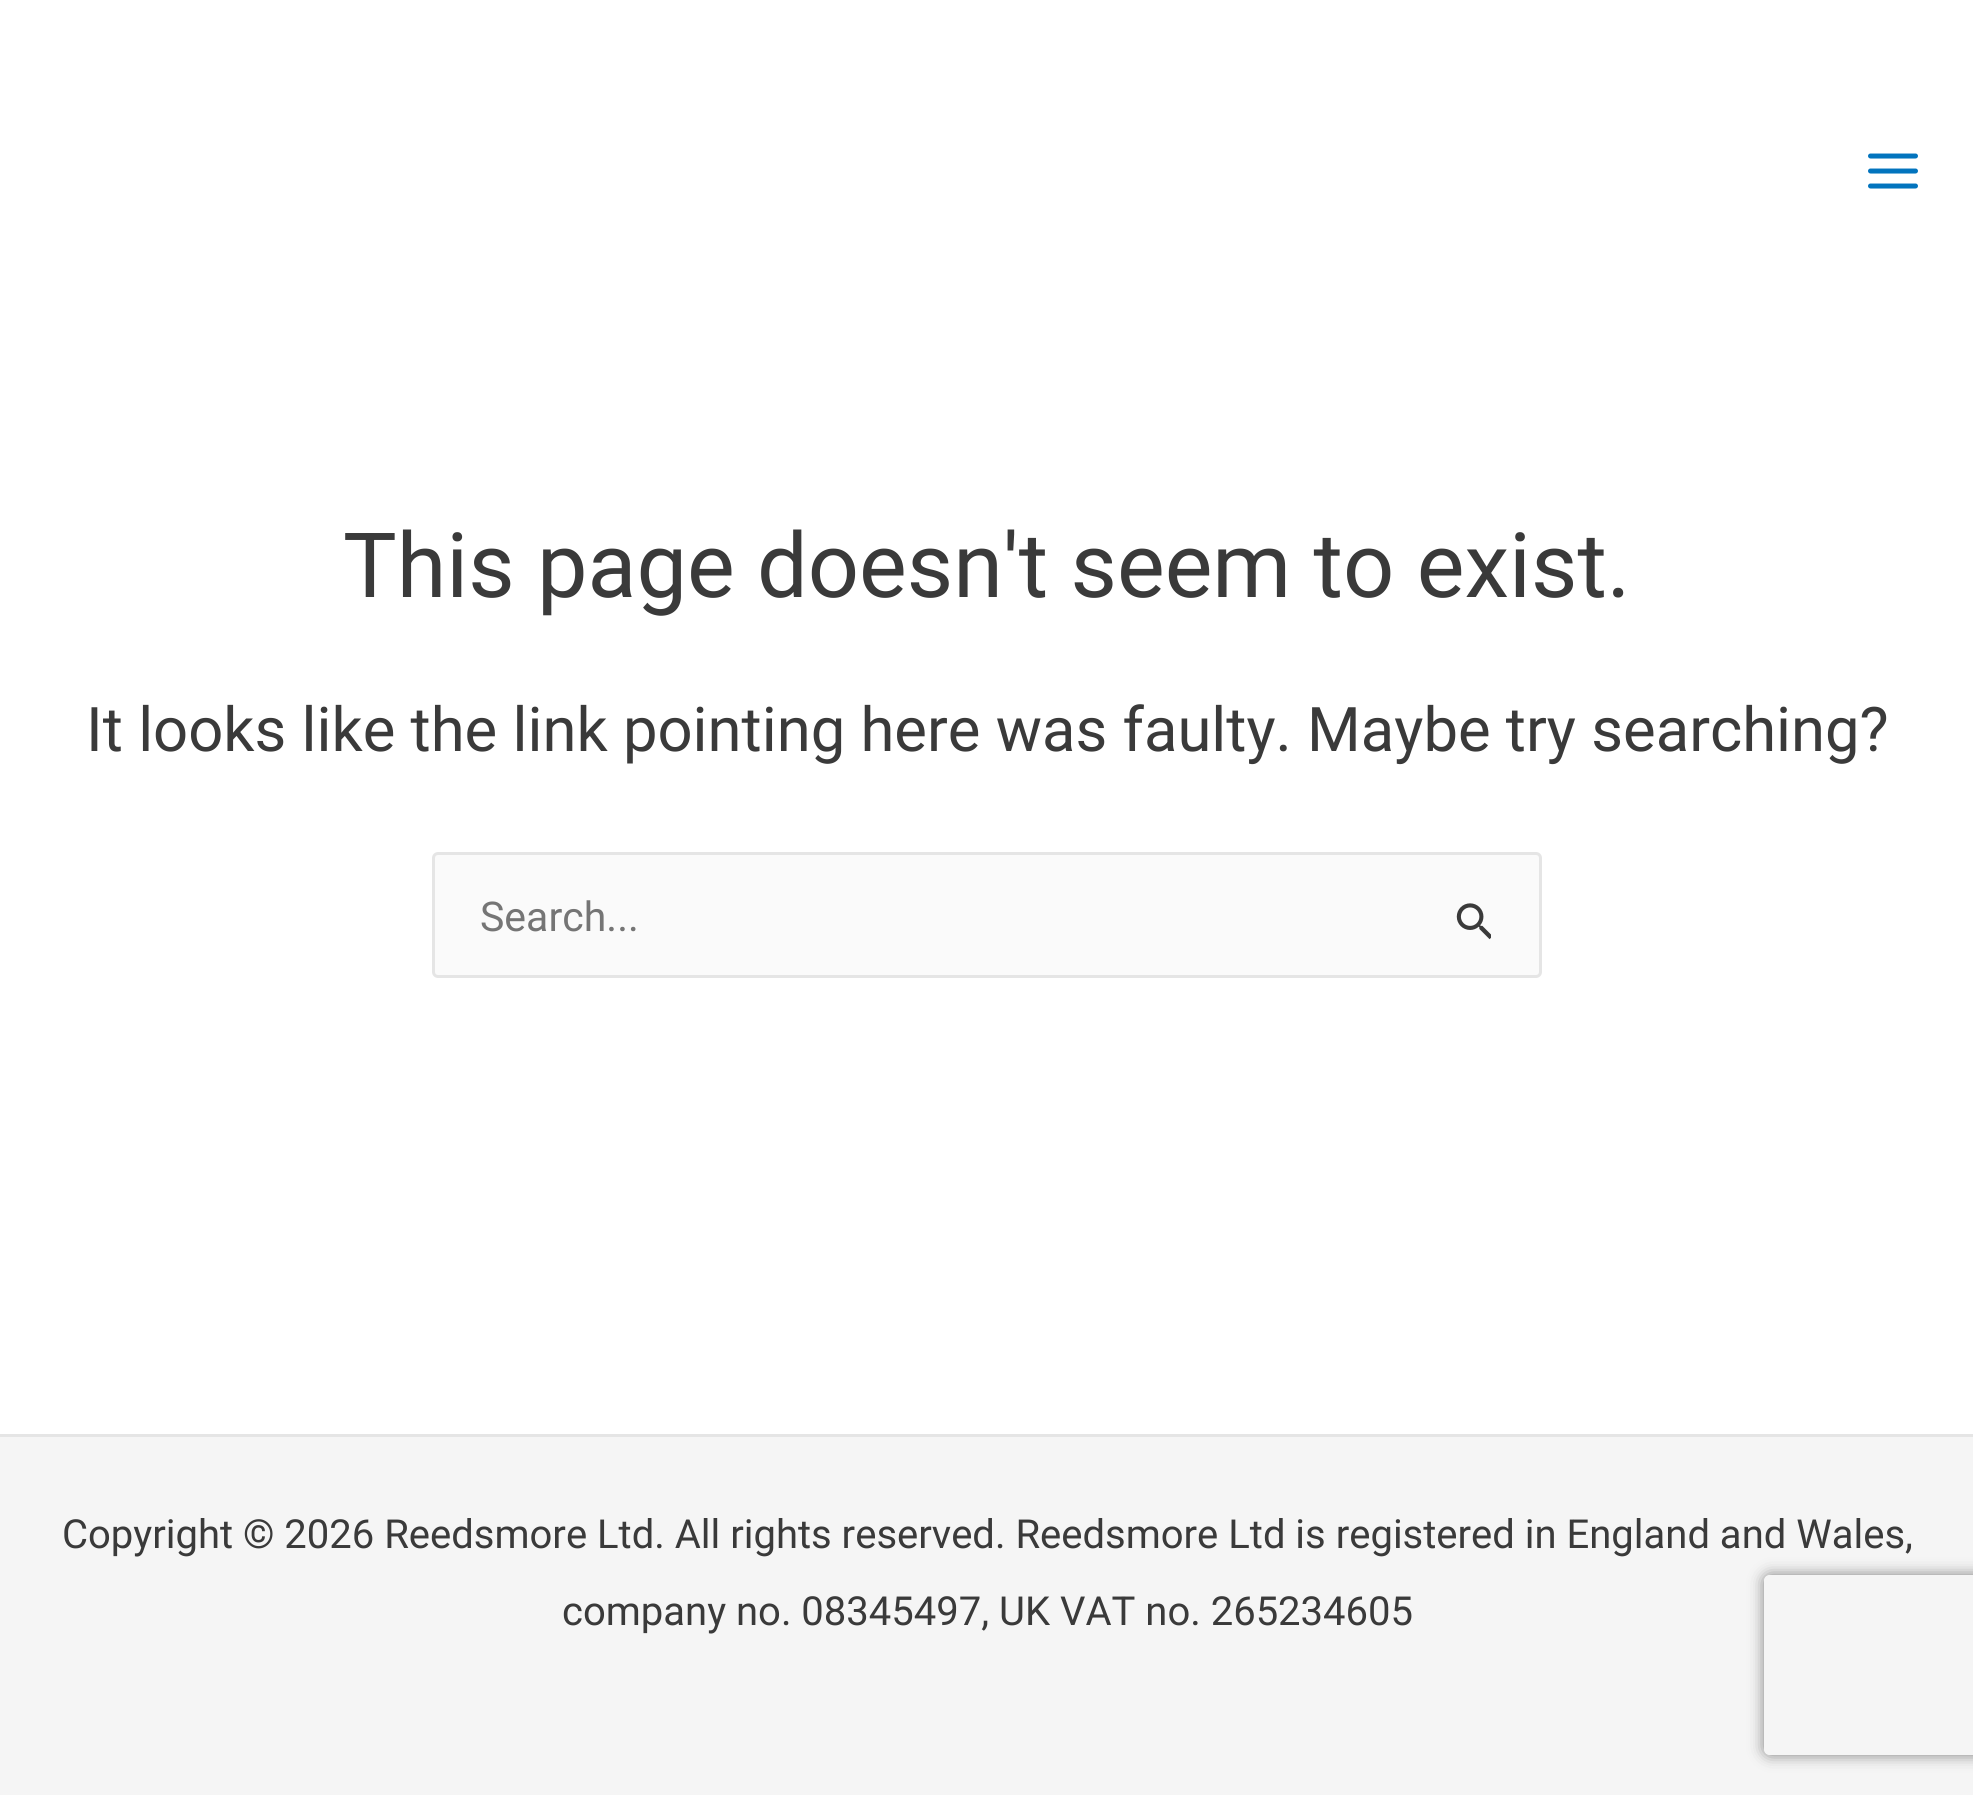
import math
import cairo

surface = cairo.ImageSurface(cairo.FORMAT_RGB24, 1973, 1795)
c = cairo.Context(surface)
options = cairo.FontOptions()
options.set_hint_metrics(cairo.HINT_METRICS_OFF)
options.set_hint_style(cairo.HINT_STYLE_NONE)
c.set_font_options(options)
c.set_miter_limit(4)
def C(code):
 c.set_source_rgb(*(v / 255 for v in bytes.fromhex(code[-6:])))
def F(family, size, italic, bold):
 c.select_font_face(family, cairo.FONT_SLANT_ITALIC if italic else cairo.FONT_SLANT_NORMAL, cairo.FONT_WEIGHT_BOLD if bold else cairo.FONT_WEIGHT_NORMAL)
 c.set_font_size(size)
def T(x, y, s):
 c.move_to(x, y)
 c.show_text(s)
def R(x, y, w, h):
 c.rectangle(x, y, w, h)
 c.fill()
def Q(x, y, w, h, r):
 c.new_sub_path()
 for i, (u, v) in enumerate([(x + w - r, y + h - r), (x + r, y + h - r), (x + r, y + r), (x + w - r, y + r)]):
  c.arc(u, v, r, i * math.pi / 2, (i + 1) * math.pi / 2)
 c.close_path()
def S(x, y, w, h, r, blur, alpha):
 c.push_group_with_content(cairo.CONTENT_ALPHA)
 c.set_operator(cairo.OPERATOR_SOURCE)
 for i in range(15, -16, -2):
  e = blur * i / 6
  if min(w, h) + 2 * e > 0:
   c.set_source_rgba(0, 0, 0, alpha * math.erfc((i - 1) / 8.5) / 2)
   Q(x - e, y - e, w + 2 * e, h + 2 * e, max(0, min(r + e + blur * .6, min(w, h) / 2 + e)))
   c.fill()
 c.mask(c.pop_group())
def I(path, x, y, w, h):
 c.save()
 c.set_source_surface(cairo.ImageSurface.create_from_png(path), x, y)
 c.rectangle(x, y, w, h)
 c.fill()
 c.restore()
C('ffffff')
c.paint()
I('1.png',1868,153,50,36)
F('Roboto',90,0,0)
C('3a3a3a')
T(343,597,'This page doesn\'t seem to exist.')
F('Roboto',61.55,0,0)
T(86,751,'It looks like the link pointing here was faulty. Maybe try searching?')
C('fafafa')
Q(433.5,853.5,1107,123,4.5)
c.fill_preserve()
C('e5e5e5')
c.set_line_width(3)
c.stroke()
F('Roboto',41,0,0)
C('757575')
T(480,931,'Search...')
I('2.png',1456,903,35,37)
C('f5f5f5')
R(0,1437,1973,358)
C('e5e5e5')
R(0,1434,1973,3)
F('Roboto',40,0,0)
C('3a3a3a')
T(62,1548,'Copyright © 2026 Reedsmore Ltd. All rights reserved. Reedsmore Ltd is registered in England and Wales,')
T(562,1625,'company no. 08345497, UK VAT no. 265234605')
c.save()
c.set_fill_rule(cairo.FILL_RULE_EVEN_ODD)
c.new_path()
c.move_to(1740,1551)
c.line_to(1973,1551)
c.line_to(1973,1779)
c.line_to(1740,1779)
c.close_path()
c.move_to(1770,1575)
c.line_to(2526,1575)
c.curve_to(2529.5,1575,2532,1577.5,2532,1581)
c.line_to(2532,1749)
c.curve_to(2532,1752.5,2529.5,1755,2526,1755)
c.line_to(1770,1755)
c.curve_to(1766.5,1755,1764,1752.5,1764,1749)
c.line_to(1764,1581)
c.curve_to(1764,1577.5,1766.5,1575,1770,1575)
c.close_path()
c.clip()
C('808080')
S(1764,1575,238,180,6,7.5,1)
c.restore()
surface.write_to_png('o.png')
